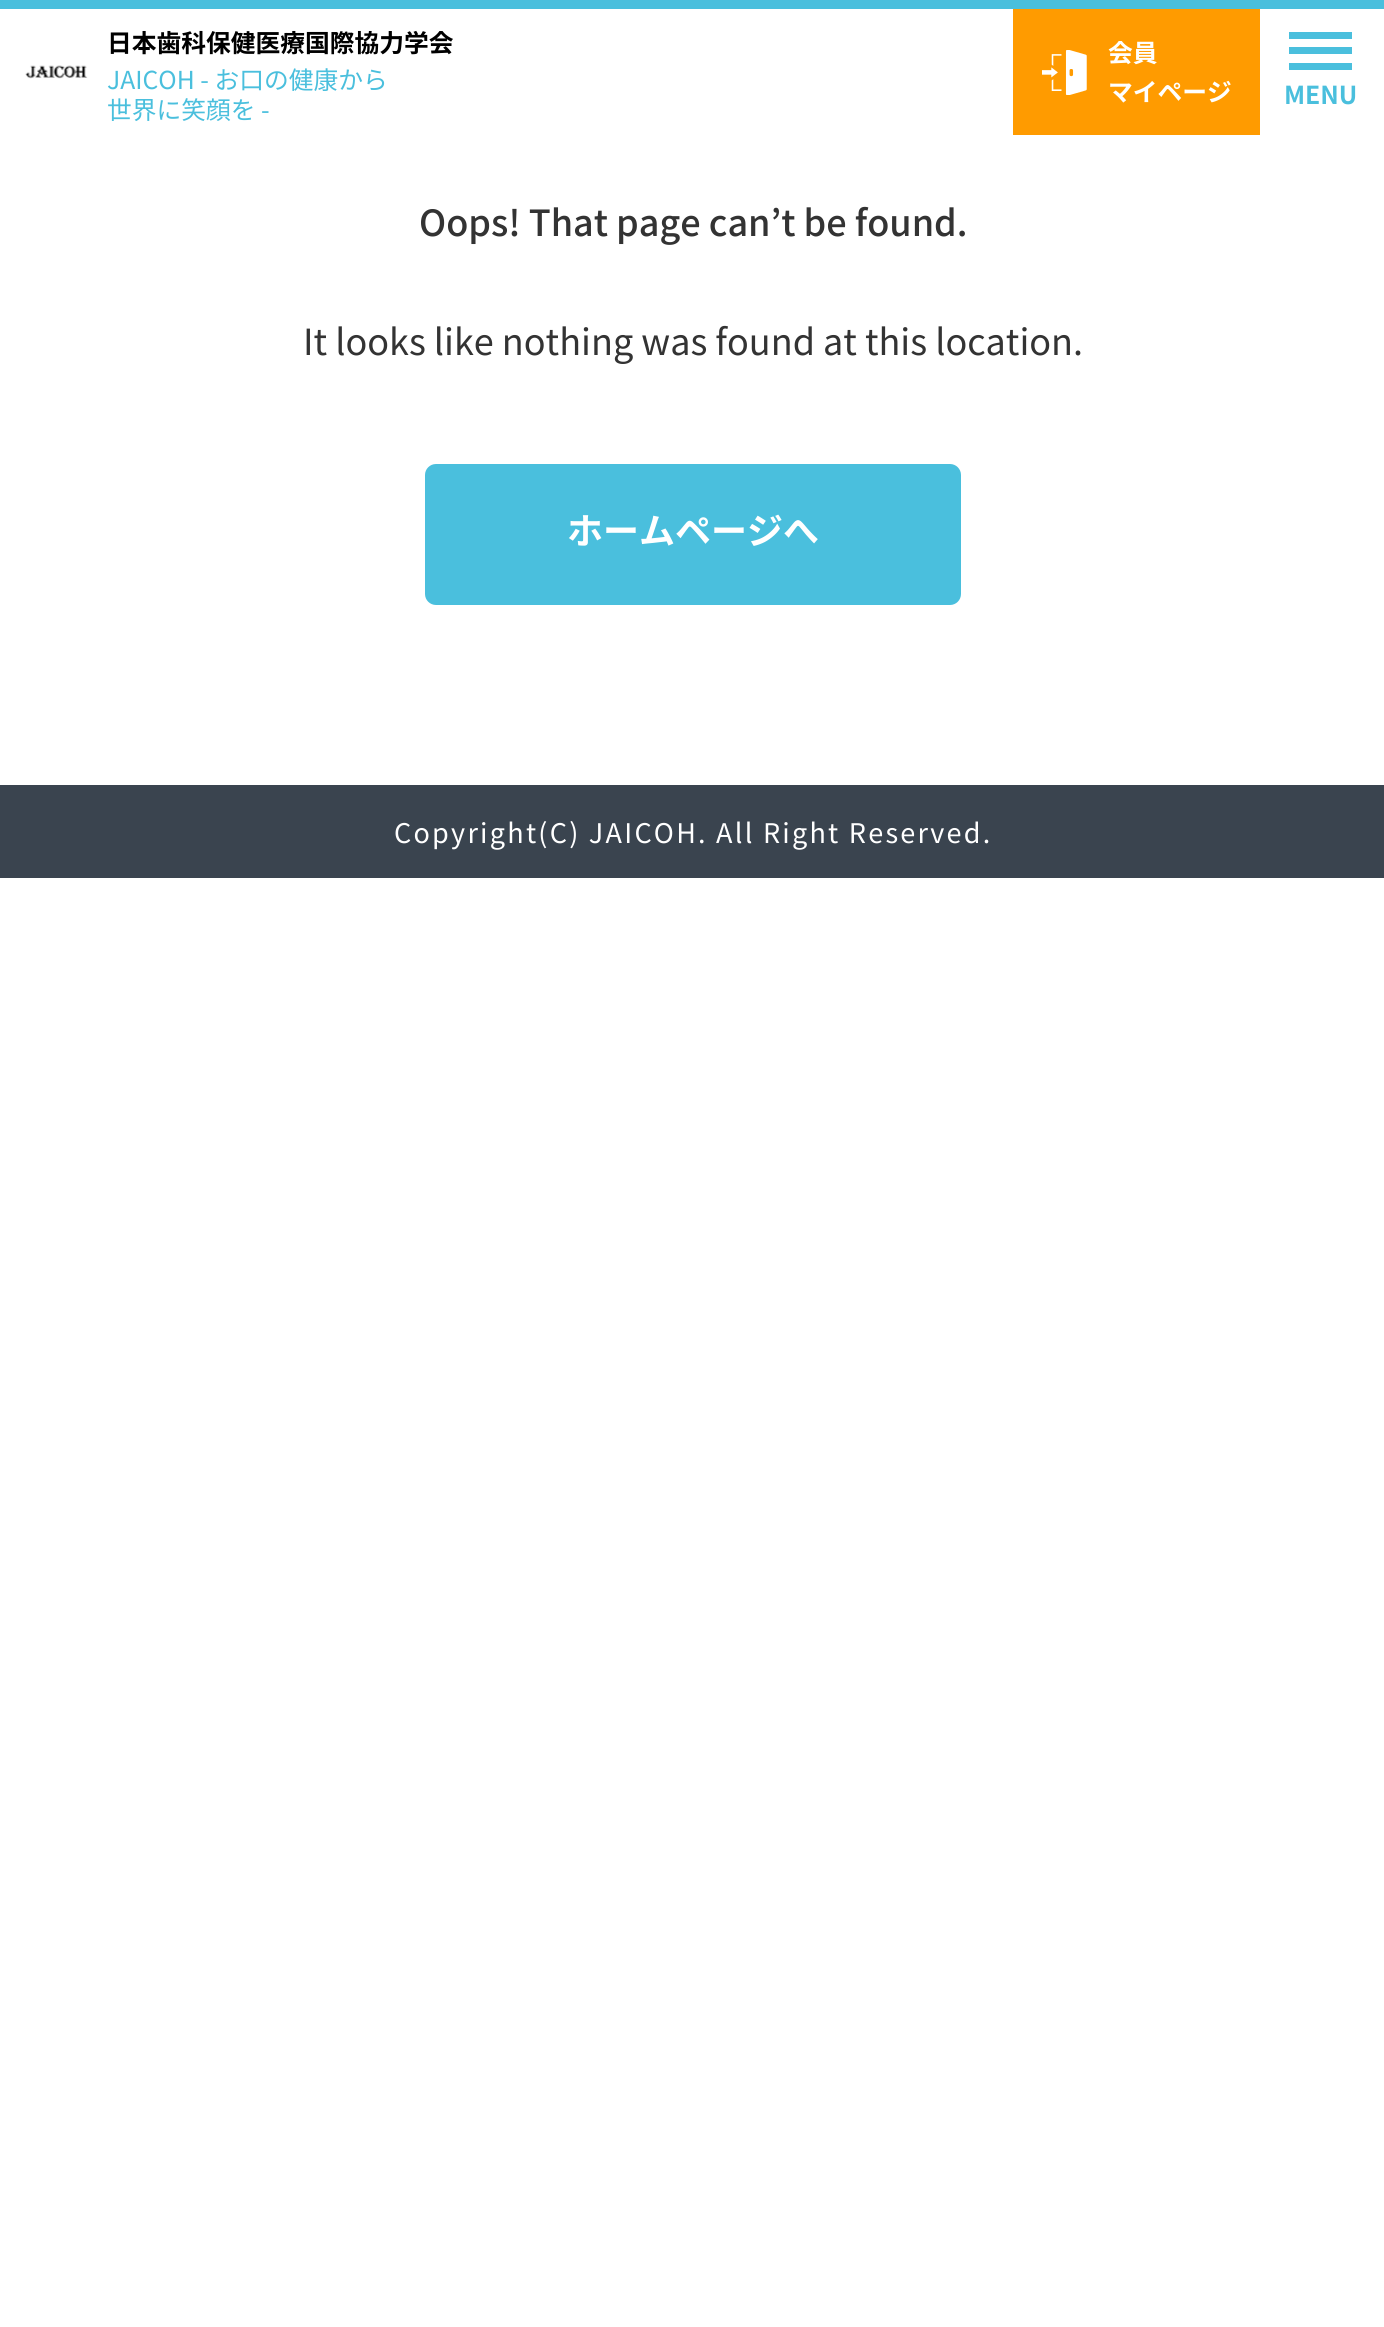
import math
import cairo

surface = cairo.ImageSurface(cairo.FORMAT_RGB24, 1384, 2327)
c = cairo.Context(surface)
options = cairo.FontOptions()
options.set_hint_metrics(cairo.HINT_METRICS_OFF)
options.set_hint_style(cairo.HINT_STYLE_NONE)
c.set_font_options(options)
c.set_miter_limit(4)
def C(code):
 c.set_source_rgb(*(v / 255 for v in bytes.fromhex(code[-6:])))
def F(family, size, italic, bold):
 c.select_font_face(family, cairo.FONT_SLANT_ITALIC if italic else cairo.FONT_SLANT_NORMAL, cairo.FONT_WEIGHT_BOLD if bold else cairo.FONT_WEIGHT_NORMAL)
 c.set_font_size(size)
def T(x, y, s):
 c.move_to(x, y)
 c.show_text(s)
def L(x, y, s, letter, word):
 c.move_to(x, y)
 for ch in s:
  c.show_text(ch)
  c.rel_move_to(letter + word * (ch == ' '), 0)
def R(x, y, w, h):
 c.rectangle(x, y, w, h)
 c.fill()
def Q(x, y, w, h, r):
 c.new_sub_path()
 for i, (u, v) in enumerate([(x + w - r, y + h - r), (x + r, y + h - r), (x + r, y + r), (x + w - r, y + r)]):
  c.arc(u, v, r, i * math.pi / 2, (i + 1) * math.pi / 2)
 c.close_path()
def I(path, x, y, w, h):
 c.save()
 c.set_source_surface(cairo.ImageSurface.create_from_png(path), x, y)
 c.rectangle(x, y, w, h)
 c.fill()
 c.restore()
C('ffffff')
c.paint()
C('4abfdd')
R(0,0,1384,9)
I('1.png',25,65,63,14)
F('Noto Sans JP',24.75,0,1)
C('000000')
T(107,52,'日本歯科保健医療国際協力学会')
F('Noto Sans JP',24.75,0,0)
C('4abfdd')
T(107,89,'JAICOH - お口の健康から')
T(107,119,'世界に笑顔を -')
C('ff9b00')
R(1013,9,247,126)
I('2.png',1042,50,45,45)
F('Noto Sans JP',24.75,0,1)
C('ffffff')
T(1108,62,'会員')
T(1108,101,'マイページ')
C('4abfdd')
R(1289,32,63,7)
R(1289,47,63,7)
R(1289,63,63,7)
T(1284,104,'MENU')
F('Noto Sans JP Medium',36,0,0)
C('333333')
T(419,236,'Oops! That page can’t be found.')
F('Noto Sans JP',36,0,0)
T(303,355,'It looks like nothing was found at this location.')
C('4abfdd')
Q(425,464,536,141,11)
c.fill()
F('Noto Sans JP',36,0,1)
C('ffffff')
T(567,544,'ホームページへ')
C('3a444f')
R(0,785,1384,93)
F('Noto Sans JP',27,0,0)
C('ffffff')
L(394,843,'Copyright(C) JAICOH. All Right Reserved.',2.25,0)
surface.write_to_png('o.png')
